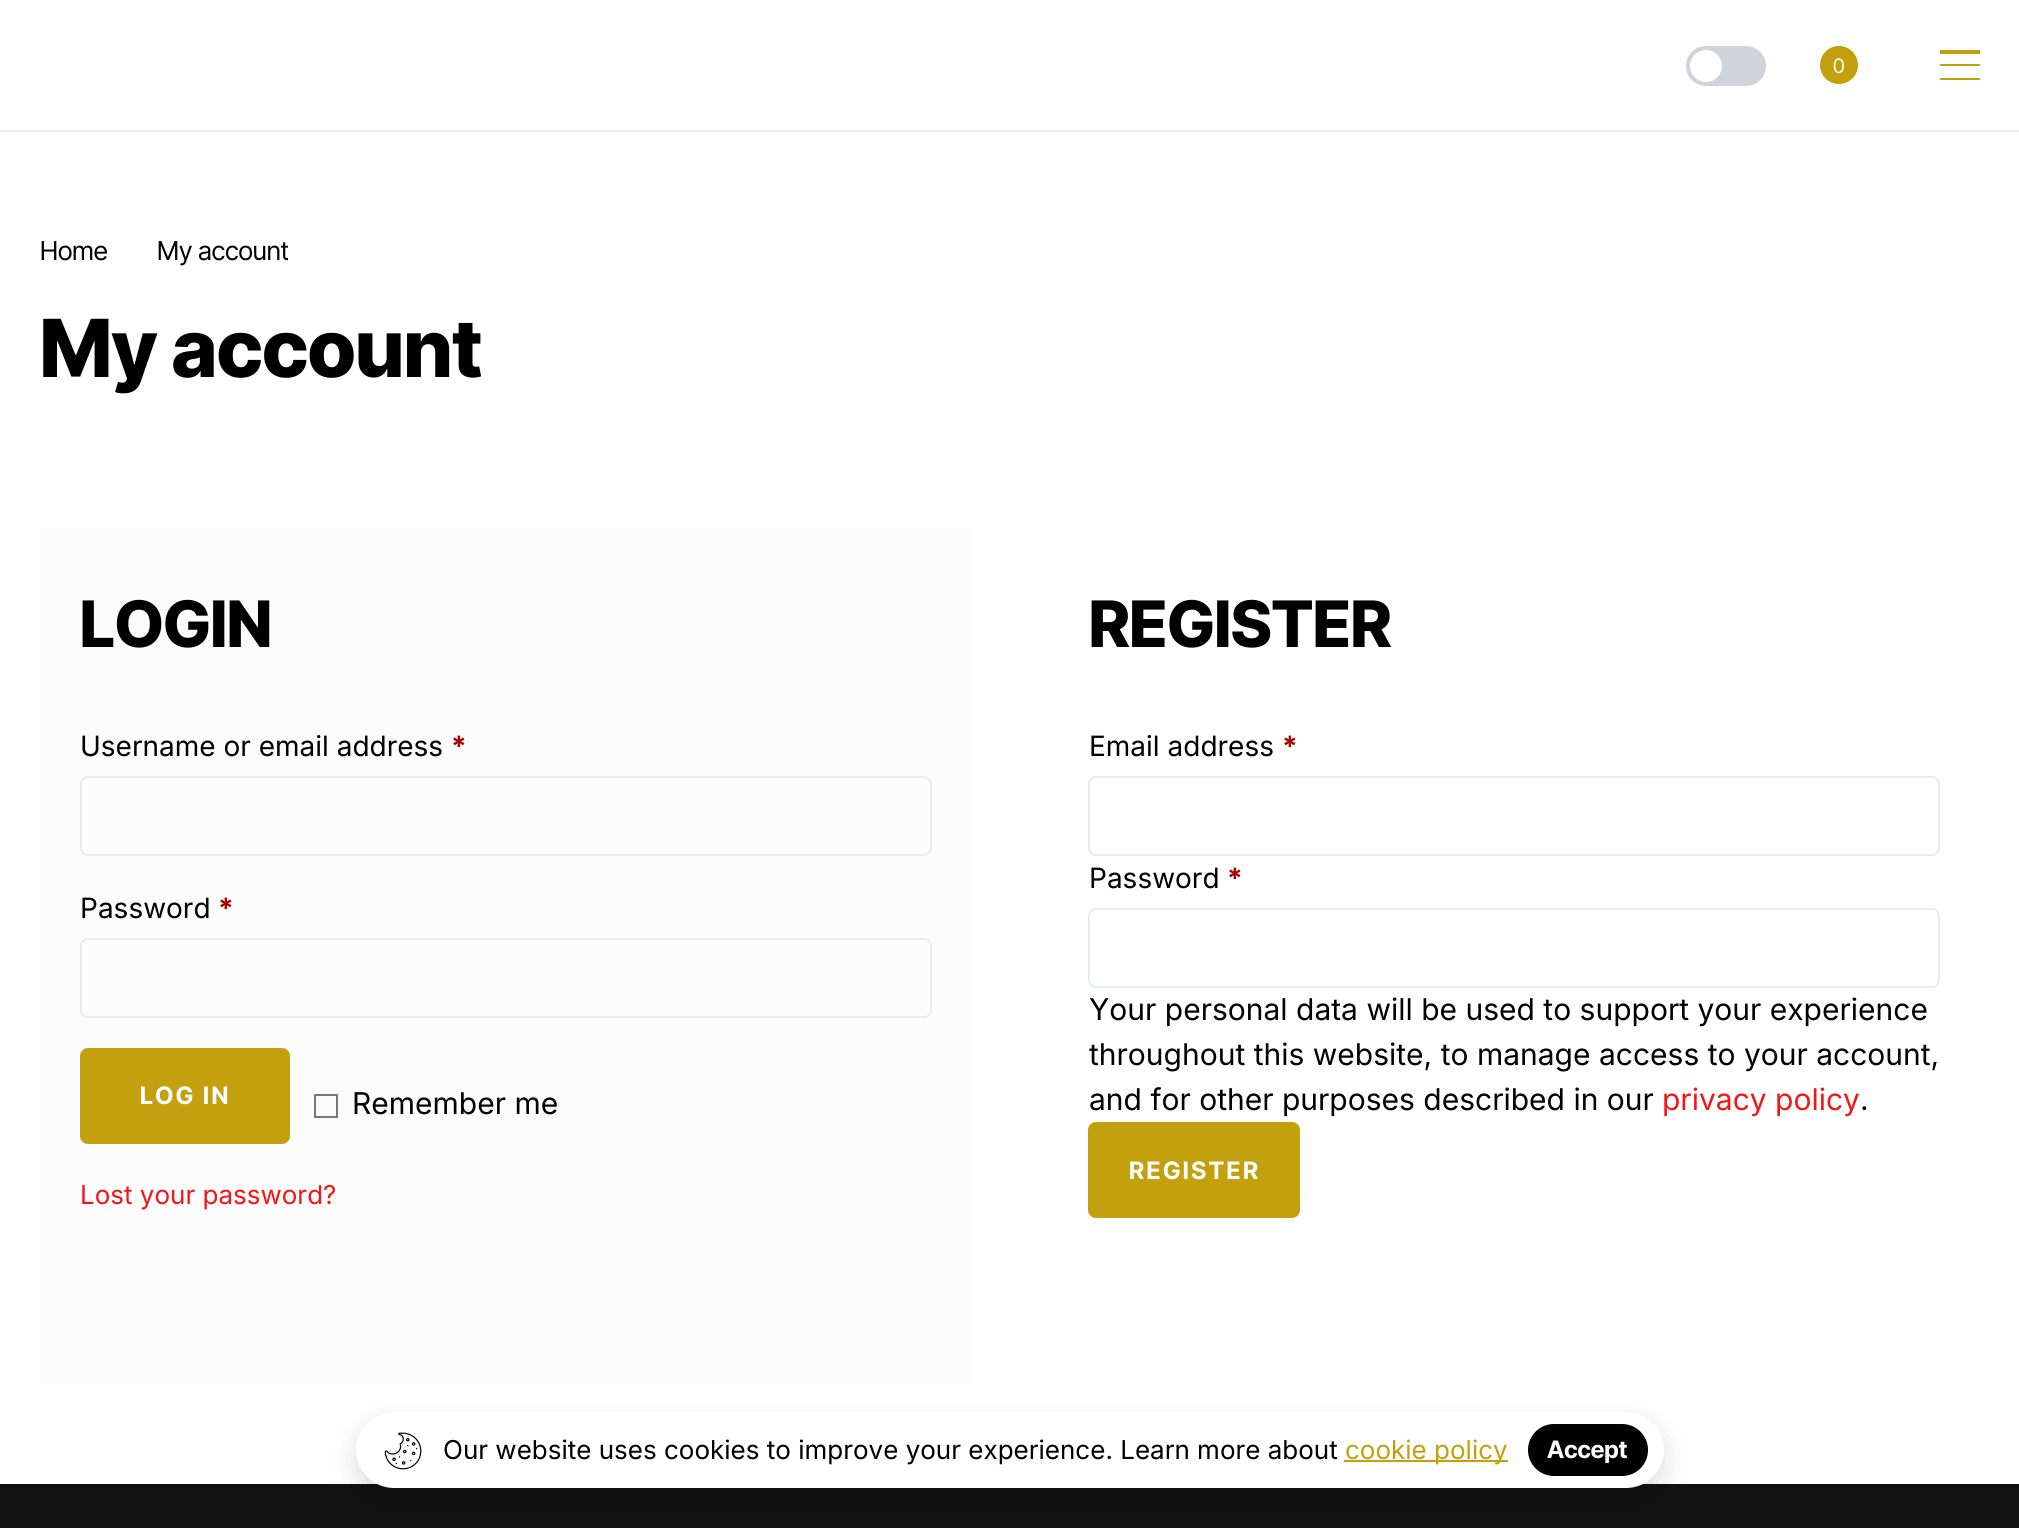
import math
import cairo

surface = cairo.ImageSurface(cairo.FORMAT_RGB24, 2019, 1528)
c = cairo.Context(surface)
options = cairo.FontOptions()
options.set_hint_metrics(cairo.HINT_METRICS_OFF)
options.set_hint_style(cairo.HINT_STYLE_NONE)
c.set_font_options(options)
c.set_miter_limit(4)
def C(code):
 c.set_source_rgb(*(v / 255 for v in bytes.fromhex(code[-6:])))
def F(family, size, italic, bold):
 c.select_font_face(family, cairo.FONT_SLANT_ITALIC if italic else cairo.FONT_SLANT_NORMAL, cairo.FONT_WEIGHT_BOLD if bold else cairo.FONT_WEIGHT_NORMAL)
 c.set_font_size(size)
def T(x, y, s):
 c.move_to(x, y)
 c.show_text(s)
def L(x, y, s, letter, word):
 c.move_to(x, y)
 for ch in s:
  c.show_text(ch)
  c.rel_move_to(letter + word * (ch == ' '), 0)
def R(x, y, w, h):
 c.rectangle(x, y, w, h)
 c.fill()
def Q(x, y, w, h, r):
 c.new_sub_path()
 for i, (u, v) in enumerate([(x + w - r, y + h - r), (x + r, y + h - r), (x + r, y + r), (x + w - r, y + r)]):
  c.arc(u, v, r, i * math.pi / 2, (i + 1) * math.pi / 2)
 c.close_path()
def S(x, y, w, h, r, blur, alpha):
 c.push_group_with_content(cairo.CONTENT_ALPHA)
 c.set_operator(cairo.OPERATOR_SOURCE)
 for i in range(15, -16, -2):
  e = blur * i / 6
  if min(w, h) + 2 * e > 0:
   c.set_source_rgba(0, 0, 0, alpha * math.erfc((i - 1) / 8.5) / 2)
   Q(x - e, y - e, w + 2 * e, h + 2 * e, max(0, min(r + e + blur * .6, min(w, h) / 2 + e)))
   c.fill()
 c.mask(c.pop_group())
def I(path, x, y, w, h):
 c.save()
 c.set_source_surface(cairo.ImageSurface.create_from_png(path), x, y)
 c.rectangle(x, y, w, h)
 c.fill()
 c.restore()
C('ffffff')
c.paint()
C('eeedeb')
R(0,130,2019,2)
C('ced4da')
Q(1686,46,80,40,20)
c.fill()
C('ffffff')
c.arc(1706,66,16,0,2 * math.pi)
c.fill()
C('c3a00e')
c.arc(1839,65,19,0,2 * math.pi)
c.fill()
F('Inter Tight',20,0,0)
C('ffffff')
T(1833,73,'0')
C('c3a00e')
R(1940,50,40,4)
R(1940,64,40,2)
R(1940,78,40,2)
F('Inter Tight',26,0,0)
C('000000')
T(40,260,'Home')
c.save()
c.rectangle(156,232,132,40)
c.clip()
T(157,260,'My account')
c.restore()
F('Inter Tight ExtraBold',80,0,0)
T(40,377,'My account')
C('fcfcfc')
R(40,528,932,856)
F('Inter Tight ExtraBold',64,0,0)
C('000000')
T(80,647,'LOGIN')
F('Inter',28,0,0)
T(80,756,'Username or email address')
F('Inter',28,0,1)
C('aa0000')
T(451,756,'*')
Q(81,777,850,78,7)
C('e9ecef')
c.stroke()
F('Inter',28,0,0)
C('000000')
T(80,918,'Password')
F('Inter',28,0,1)
C('aa0000')
T(218,918,'*')
Q(81,939,850,78,7)
C('e9ecef')
c.stroke()
C('c3a00e')
Q(80,1048,210,96,8)
c.fill()
F('Inter Tight',24,0,1)
C('ffffff')
L(140,1104,'LOG IN',2.5,0)
c.rectangle(315,1095,22,22)
C('777777')
c.stroke()
F('Inter',30,0,0)
C('000000')
T(352,1114,'Remember me')
F('Inter',26,0,0)
C('f21717')
T(80,1204,'Lost your password?')
F('Inter Tight ExtraBold',64,0,0)
C('000000')
T(1089,647,'REGISTER')
F('Inter',28,0,0)
T(1089,756,'Email address')
F('Inter',28,0,1)
C('aa0000')
T(1282,756,'*')
Q(1089,777,850,78,7)
C('e9ecef')
c.stroke()
F('Inter',28,0,0)
C('000000')
T(1089,888,'Password')
F('Inter',28,0,1)
C('aa0000')
T(1227,888,'*')
Q(1089,909,850,78,7)
C('e9ecef')
c.stroke()
F('Inter',30,0,0)
C('000000')
T(1089,1020,'Your personal data will be used to support your experience')
T(1089,1065,'throughout this website, to manage access to your account,')
T(1089,1110,'and for other purposes described in our')
C('f21717')
T(1662,1110,'privacy policy')
C('000000')
T(1860,1110,'.')
C('c3a00e')
Q(1088,1122,212,96,8)
c.fill()
F('Inter Tight',24,0,1)
C('ffffff')
L(1129,1179,'REGISTER',2.5,0)
C('111111')
R(0,1484,2019,44)
C('000000')
S(362,1428,1296,64,32,15,.2)
C('ffffff')
Q(356,1412,1308,76,38)
c.fill()
I('1.png',384,1432,38,38)
F('Inter',26,0,0)
C('000000')
T(443,1459,'Our website uses cookies to improve your experience. Learn more about')
C('c3a00e')
R(1344,1460,164,2)
T(1345,1459,'cookie policy')
C('000000')
Q(1528,1424,120,52,26)
c.fill()
F('Inter Tight',24,0,1)
C('ffffff')
T(1547,1458,'Accept')
surface.write_to_png('o.png')
